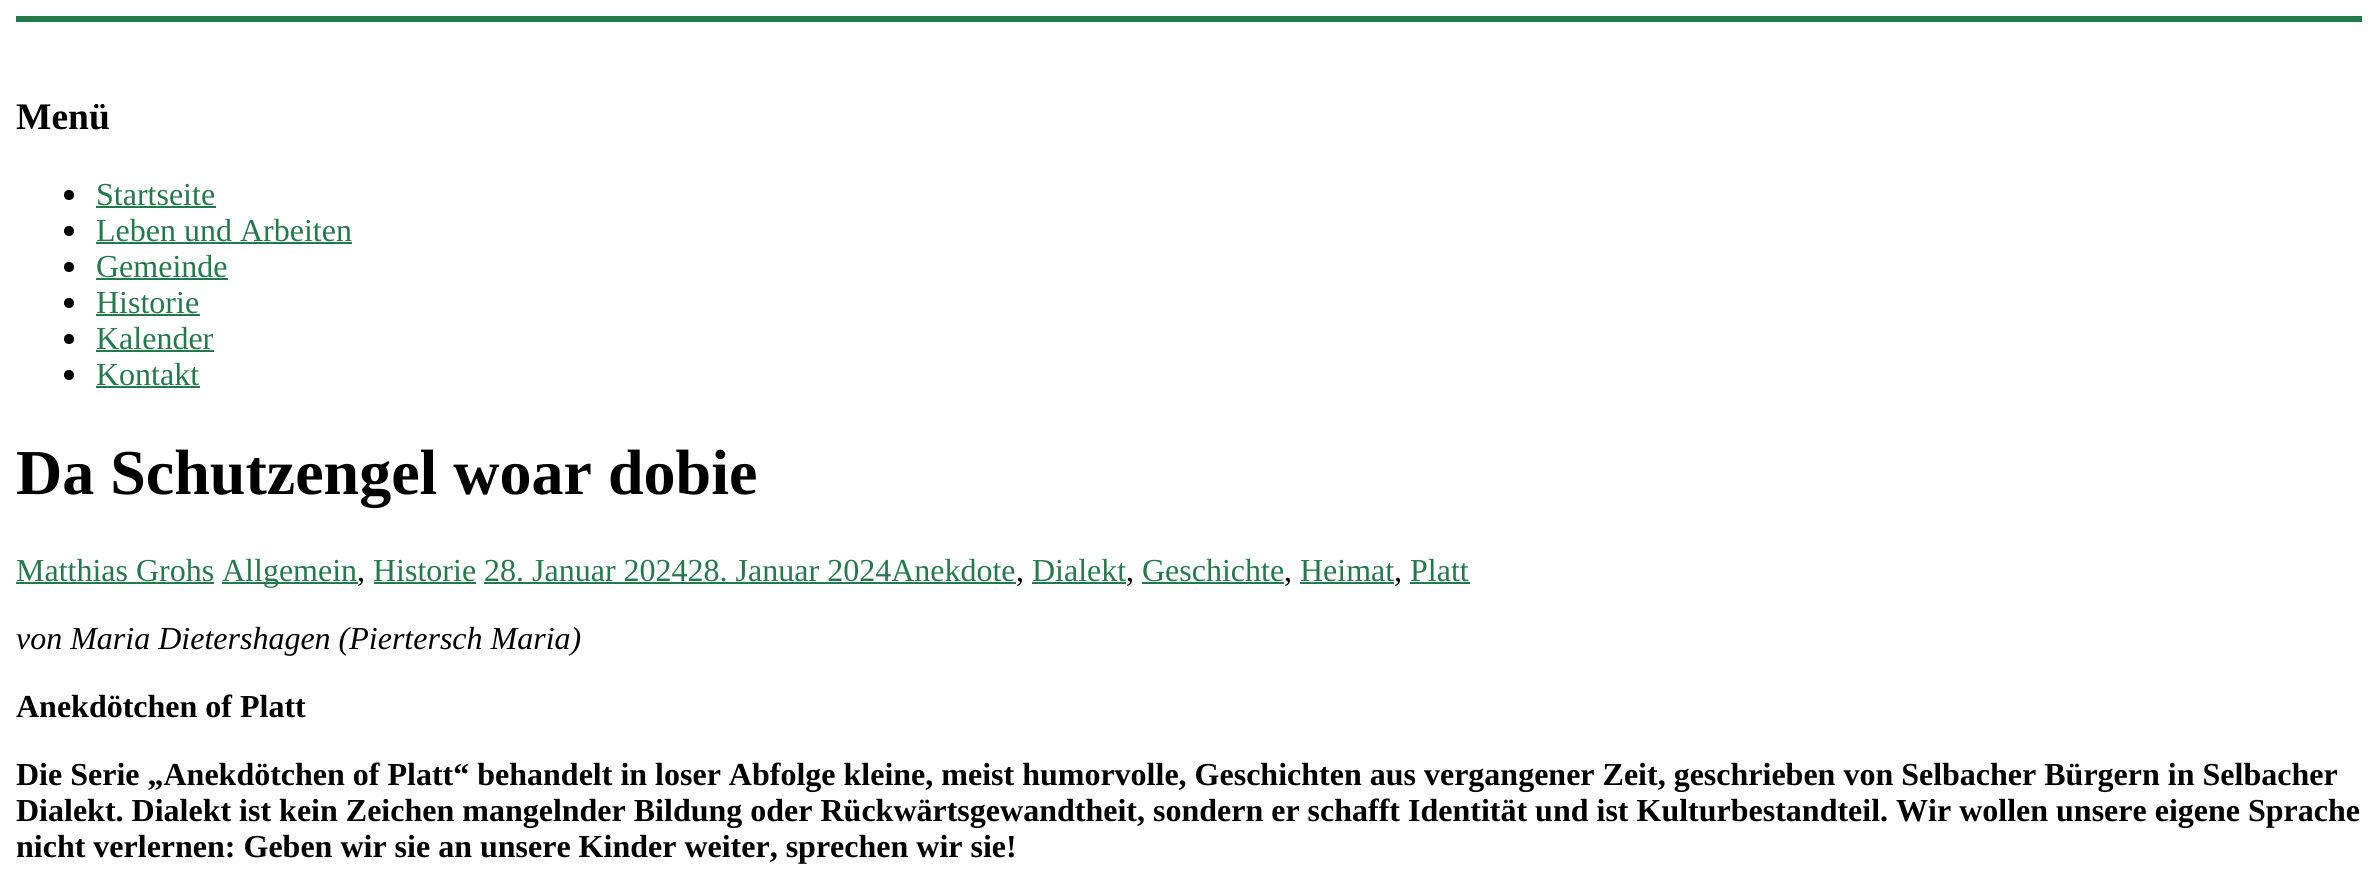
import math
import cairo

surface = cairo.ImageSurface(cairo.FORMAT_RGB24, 2377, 884)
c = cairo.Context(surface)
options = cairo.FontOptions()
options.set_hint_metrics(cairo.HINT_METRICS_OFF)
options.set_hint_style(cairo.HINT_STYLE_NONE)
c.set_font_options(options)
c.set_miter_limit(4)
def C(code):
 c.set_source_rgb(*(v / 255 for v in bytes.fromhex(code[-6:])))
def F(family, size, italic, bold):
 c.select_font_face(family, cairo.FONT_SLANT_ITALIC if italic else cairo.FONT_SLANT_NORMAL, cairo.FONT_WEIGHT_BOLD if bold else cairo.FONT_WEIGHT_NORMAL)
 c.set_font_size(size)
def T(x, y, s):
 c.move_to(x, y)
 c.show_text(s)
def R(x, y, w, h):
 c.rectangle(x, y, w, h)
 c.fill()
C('ffffff')
c.paint()
C('227a4a')
R(16,16,2346,6)
F('Liberation Serif',37.5,0,1)
C('000000')
T(16,129,'Menü')
c.new_path()
c.arc(69,195,5,0,2 * math.pi)
c.fill()
F('Liberation Serif',32,0,0)
C('227a4a')
T(96,205,'Startseite')
R(96,206,120,2)
C('000000')
c.new_path()
c.arc(69,231,5,0,2 * math.pi)
c.fill()
C('227a4a')
T(96,241,'Leben und Arbeiten')
R(96,242,256,2)
C('000000')
c.new_path()
c.arc(69,267,5,0,2 * math.pi)
c.fill()
C('227a4a')
T(96,277,'Gemeinde')
R(96,278,132,2)
C('000000')
c.new_path()
c.arc(69,303,5,0,2 * math.pi)
c.fill()
C('227a4a')
T(96,313,'Historie')
R(96,314,104,2)
C('000000')
c.new_path()
c.arc(69,339,5,0,2 * math.pi)
c.fill()
C('227a4a')
T(96,349,'Kalender')
R(96,350,118,2)
C('000000')
c.new_path()
c.arc(69,375,5,0,2 * math.pi)
c.fill()
C('227a4a')
T(96,385,'Kontakt')
R(96,386,104,2)
F('Liberation Serif',64,0,1)
C('000000')
T(16,494,'Da Schutzengel woar dobie')
F('Liberation Serif',32,0,0)
C('227a4a')
T(16,581,'Matthias Grohs')
R(16,582,198,2)
R(222,582,136,2)
T(222,581,'Allgemein')
C('000000')
T(357,581,',')
C('227a4a')
R(374,582,102,2)
T(373,581,'Historie 28. Januar 202428. Januar 2024Anekdote')
C('000000')
T(1016,581,',')
C('227a4a')
T(1032,581,'Dialekt')
C('000000')
T(1126,581,',')
C('227a4a')
R(1032,582,94,2)
T(1142,581,'Geschichte')
C('000000')
T(1284,581,',')
C('227a4a')
R(1142,582,142,2)
T(1300,581,'Heimat')
C('000000')
T(1394,581,',')
C('227a4a')
R(1300,582,94,2)
R(1410,582,60,2)
T(1410,581,'Platt')
R(484,582,532,2)
F('Liberation Serif',32,1,0)
C('000000')
T(16,649,'von Maria Dietershagen (Piertersch Maria)')
F('Liberation Serif',32,0,1)
T(16,717,'Anekdötchen of Platt')
T(16,785,'Die Serie „Anekdötchen of Platt“ behandelt in loser Abfolge kleine, meist humorvolle, Geschichten aus vergangener Zeit, geschrieben von Selbacher Bürgern in Selbacher')
T(16,821,'Dialekt. Dialekt ist kein Zeichen mangelnder Bildung oder Rückwärtsgewandtheit, sondern er schafft Identität und ist Kulturbestandteil. Wir wollen unsere eigene Sprache')
T(16,857,'nicht verlernen: Geben wir sie an unsere Kinder weiter, sprechen wir sie!')
surface.write_to_png('o.png')
